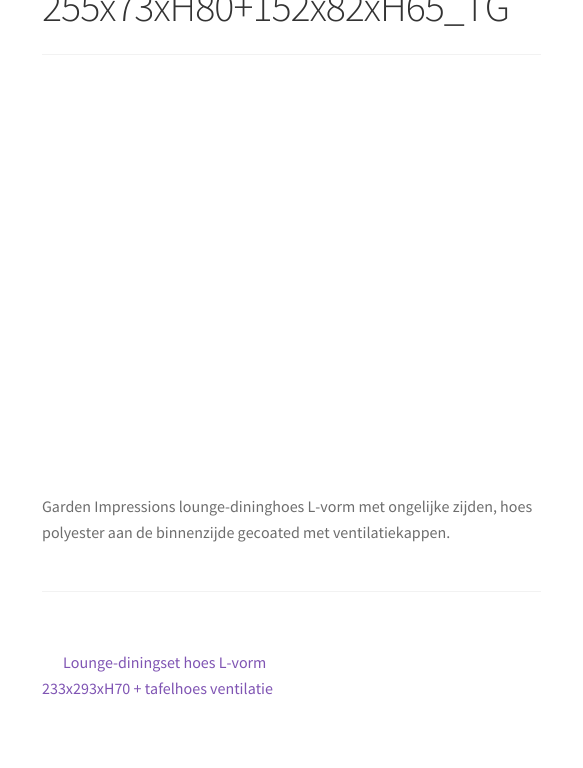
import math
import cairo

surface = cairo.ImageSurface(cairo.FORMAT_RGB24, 583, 768)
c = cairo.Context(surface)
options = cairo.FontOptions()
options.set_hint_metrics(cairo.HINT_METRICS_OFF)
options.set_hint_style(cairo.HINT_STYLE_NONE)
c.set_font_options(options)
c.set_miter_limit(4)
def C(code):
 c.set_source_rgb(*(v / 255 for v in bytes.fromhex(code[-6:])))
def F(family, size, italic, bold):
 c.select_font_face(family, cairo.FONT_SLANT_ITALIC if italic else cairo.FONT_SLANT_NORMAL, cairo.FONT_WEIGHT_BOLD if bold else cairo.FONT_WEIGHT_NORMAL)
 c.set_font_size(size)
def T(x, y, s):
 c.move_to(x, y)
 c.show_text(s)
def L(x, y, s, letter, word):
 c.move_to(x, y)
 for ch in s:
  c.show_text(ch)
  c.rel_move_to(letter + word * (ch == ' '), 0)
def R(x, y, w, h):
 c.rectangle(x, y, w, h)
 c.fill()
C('ffffff')
c.paint()
C('f2f2f2')
R(42,54,499,1)
F('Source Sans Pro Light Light',41.9,0,0)
C('333333')
L(42,21,'255x73xH80+152x82xH65_TG',-1,0)
F('Source Sans Pro',16,0,0)
C('6d6d6d')
T(42,512,'Garden Impressions lounge-dininghoes L-vorm met ongelijke zijden, hoes')
T(42,538,'polyester aan de binnenzijde gecoated met ventilatiekappen.')
C('f2f2f2')
R(42,591,499,1)
C('7f54b3')
T(63,668,'Lounge-diningset hoes L-vorm')
T(42,694,'233x293xH70 + tafelhoes ventilatie')
surface.write_to_png('o.png')
